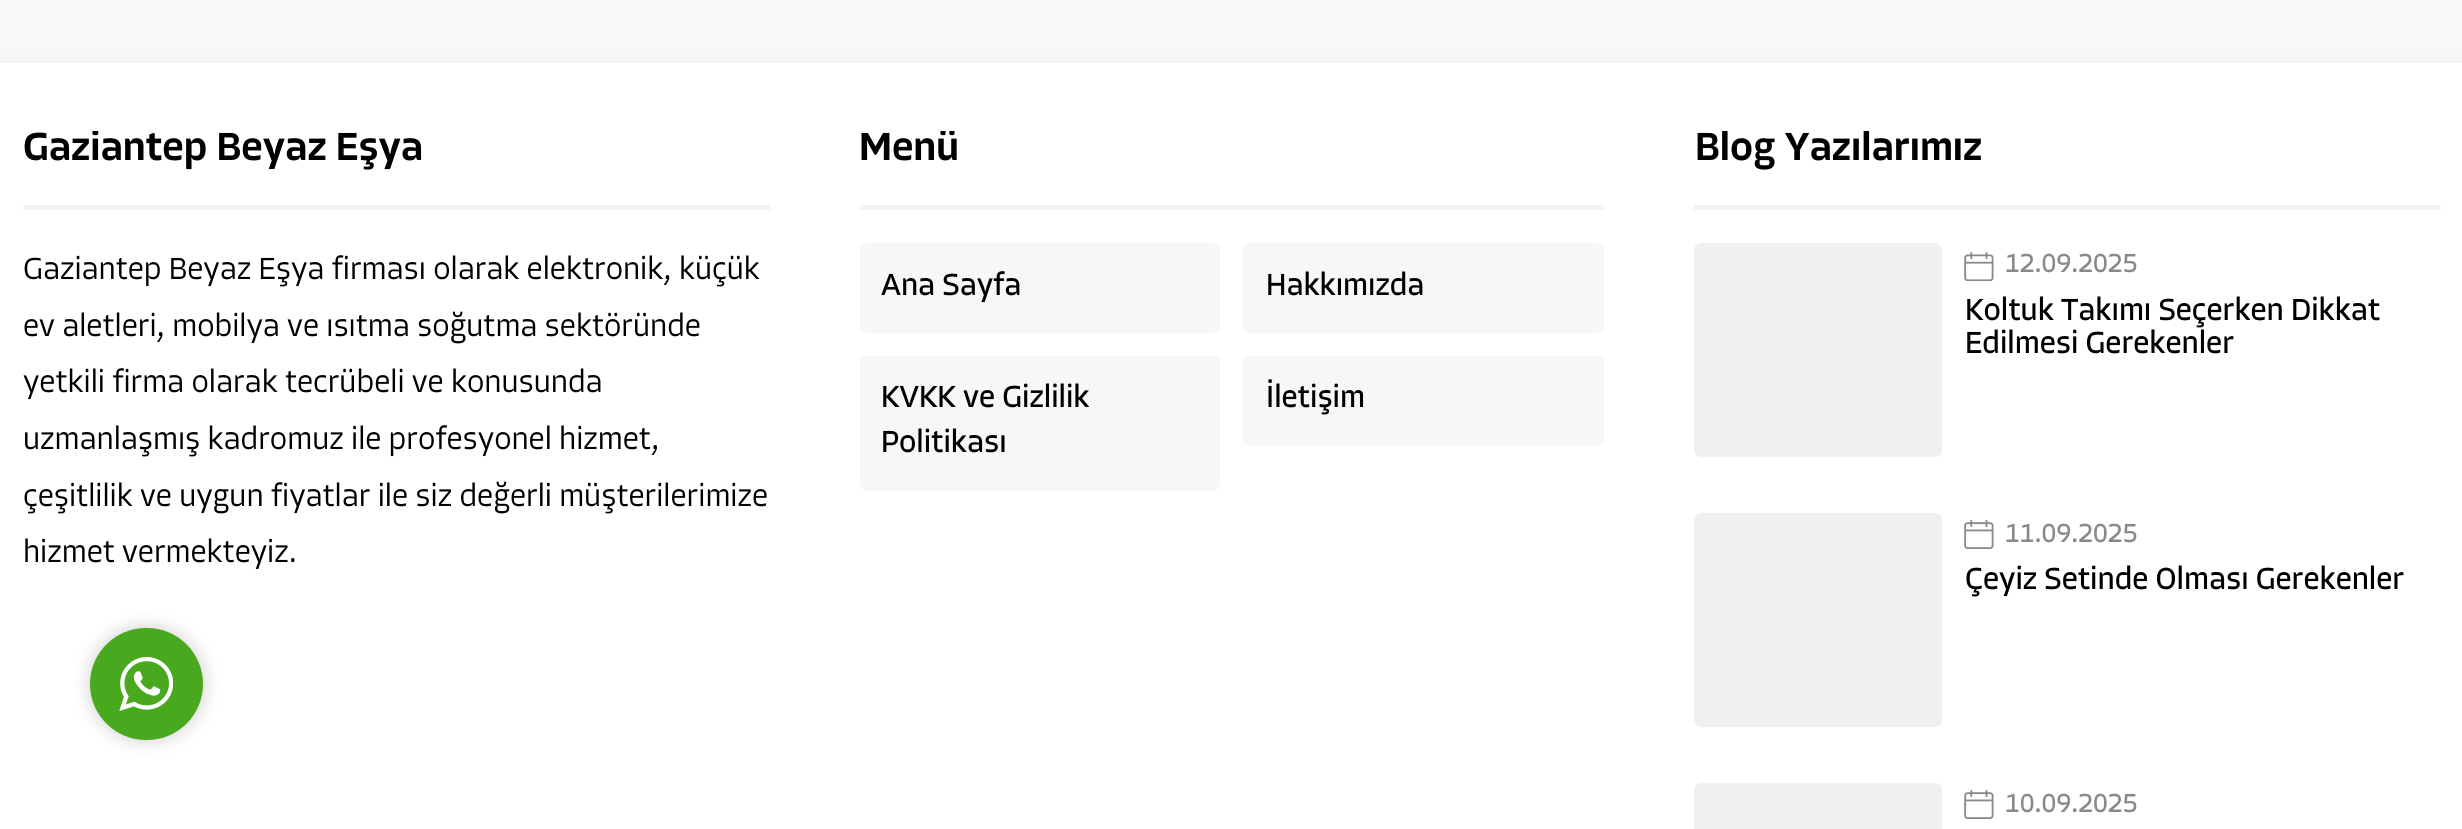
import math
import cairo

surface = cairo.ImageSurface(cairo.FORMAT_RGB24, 2462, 829)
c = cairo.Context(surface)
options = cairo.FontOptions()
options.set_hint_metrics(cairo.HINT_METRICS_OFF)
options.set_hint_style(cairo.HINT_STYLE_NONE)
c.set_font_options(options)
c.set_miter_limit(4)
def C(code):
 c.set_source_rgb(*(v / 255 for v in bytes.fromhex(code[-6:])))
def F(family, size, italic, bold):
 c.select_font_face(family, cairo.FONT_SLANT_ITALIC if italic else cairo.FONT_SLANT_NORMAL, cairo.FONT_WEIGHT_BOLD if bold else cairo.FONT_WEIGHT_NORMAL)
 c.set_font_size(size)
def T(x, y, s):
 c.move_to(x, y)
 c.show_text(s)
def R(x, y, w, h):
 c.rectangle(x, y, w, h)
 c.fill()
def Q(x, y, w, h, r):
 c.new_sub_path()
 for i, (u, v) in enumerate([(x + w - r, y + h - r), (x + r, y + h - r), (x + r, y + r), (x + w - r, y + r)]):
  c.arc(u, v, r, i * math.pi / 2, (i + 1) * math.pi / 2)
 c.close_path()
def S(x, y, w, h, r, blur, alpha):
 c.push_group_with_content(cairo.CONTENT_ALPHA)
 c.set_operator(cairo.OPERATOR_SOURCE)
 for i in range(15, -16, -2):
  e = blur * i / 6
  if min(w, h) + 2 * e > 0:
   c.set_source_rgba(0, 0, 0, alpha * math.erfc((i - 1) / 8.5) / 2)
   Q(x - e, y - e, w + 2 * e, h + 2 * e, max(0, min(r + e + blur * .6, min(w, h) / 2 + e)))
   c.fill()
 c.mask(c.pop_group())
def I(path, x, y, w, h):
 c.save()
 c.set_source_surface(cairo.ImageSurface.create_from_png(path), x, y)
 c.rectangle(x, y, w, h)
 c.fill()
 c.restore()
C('f9f9f9')
c.paint()
C('000000')
S(0,63,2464,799,0,11,.05)
C('ffffff')
R(0,63,2462,766)
C('f3f3f3')
R(23,205,747,5)
c.save()
c.rectangle(0,131,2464,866)
c.clip()
F('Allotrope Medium',40.5,0,0)
C('000000')
T(23,160,'Gaziantep Beyaz Eşya')
c.restore()
F('Allotrope Light',31.5,0,0)
C('000000')
T(23,279,'Gaziantep Beyaz Eşya firması olarak elektronik, küçük')
T(23,336,'ev aletleri, mobilya ve ısıtma soğutma sektöründe')
T(23,392,'yetkili firma olarak tecrübeli ve konusunda')
T(23,449,'uzmanlaşmış kadromuz ile profesyonel hizmet,')
T(23,506,'çeşitlilik ve uygun fiyatlar ile siz değerli müşterilerimize')
T(23,562,'hizmet vermekteyiz.')
C('f3f3f3')
R(860,205,744,5)
c.save()
c.rectangle(0,131,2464,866)
c.clip()
F('Allotrope Medium',40.5,0,0)
C('000000')
T(859,160,'Menü')
c.restore()
C('f7f7f7')
Q(860,243,360,90,7)
c.fill()
F('Allotrope',31.5,0,0)
C('000000')
T(881,295,'Ana Sayfa')
C('f7f7f7')
Q(1242,243,362,90,7)
c.fill()
C('000000')
T(1266,295,'Hakkımızda')
C('f7f7f7')
Q(860,356,360,135,7)
c.fill()
C('000000')
T(881,407,'KVKK ve Gizlilik')
T(881,452,'Politikası')
C('f7f7f7')
Q(1242,356,362,90,7)
c.fill()
C('000000')
T(1266,407,'İletişim')
C('f3f3f3')
R(1694,205,747,5)
c.save()
c.rectangle(0,131,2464,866)
c.clip()
F('Allotrope Medium',40.5,0,0)
C('000000')
T(1695,160,'Blog Yazılarımız')
c.restore()
C('f0f0f0')
Q(1694,243,248,214,7)
c.fill()
I('1.png',1964,252,30,29)
F('Allotrope',27,0,0)
C('898989')
T(2005,272,'12.09.2025')
F('Allotrope',31.5,0,0)
C('000000')
T(1965,320,'Koltuk Takımı Seçerken Dikkat')
T(1965,353,'Edilmesi Gerekenler')
C('f0f0f0')
Q(1694,513,248,214,7)
c.fill()
I('2.png',1964,520,30,29)
F('Allotrope',27,0,0)
C('898989')
T(2005,542,'11.09.2025')
F('Allotrope',31.5,0,0)
C('000000')
T(1965,589,'Çeyiz Setinde Olması Gerekenler')
C('f0f0f0')
Q(1694,783,248,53,7)
c.fill()
I('2.png',1964,790,30,29)
F('Allotrope',27,0,0)
C('898989')
T(2005,812,'10.09.2025')
C('000000')
S(90,628,113,112,56,9,.2)
C('48a91f')
Q(90,628,113,112,56)
c.fill()
I('3.png',119,657,54,54)
surface.write_to_png('o.png')
